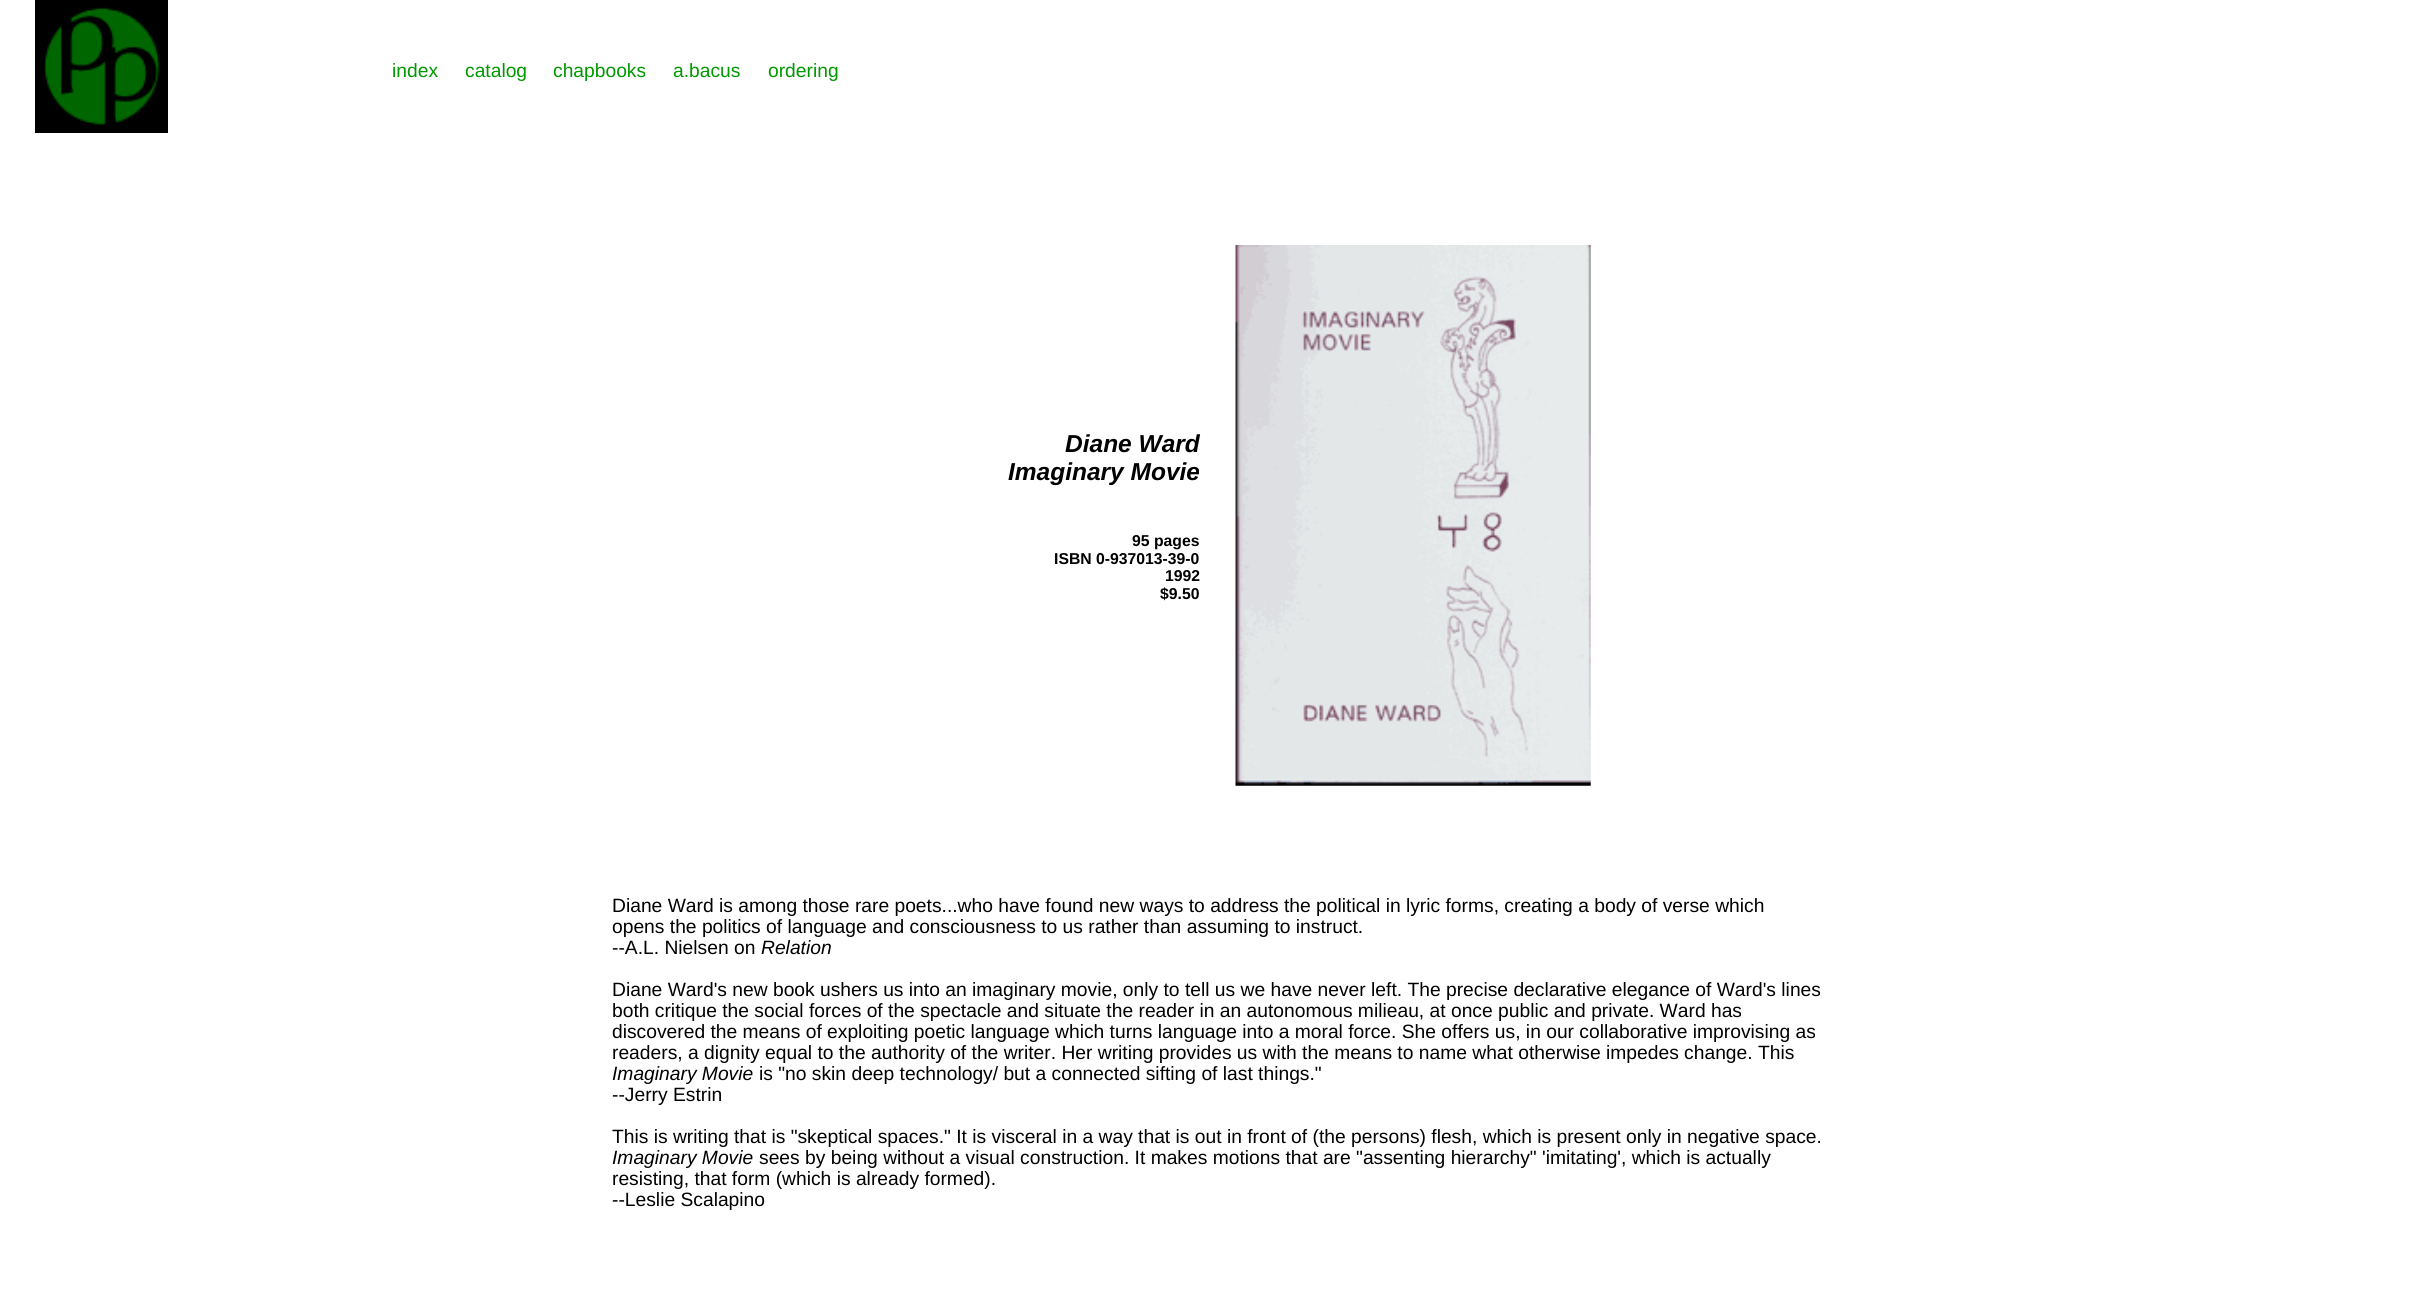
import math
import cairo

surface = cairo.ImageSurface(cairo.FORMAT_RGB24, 2433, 1308)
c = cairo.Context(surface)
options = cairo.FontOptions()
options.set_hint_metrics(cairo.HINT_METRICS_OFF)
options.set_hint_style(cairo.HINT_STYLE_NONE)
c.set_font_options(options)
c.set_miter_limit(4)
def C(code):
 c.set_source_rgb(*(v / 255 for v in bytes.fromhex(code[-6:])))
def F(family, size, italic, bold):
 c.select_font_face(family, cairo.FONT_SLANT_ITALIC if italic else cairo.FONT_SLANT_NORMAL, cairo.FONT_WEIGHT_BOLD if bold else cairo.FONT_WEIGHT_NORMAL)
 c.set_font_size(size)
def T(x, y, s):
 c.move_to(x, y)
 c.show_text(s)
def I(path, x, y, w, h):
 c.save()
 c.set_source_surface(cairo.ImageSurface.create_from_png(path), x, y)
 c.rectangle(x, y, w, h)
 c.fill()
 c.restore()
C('ffffff')
c.paint()
I('1.png',35,0,133,133)
F('Liberation Sans',19.25,0,0)
C('009900')
T(392,77,'index')
T(465,77,'catalog')
T(553,77,'chapbooks')
T(673,77,'a.bacus')
T(768,77,'ordering')
F('Liberation Sans',24.5,1,1)
C('000000')
T(1065,452,'Diane Ward')
T(1008,480,'Imaginary Movie')
F('Liberation Sans',15.75,0,1)
T(1132,546,'95 pages')
T(1054,564,'ISBN 0-937013-39-0')
T(1165,581,'1992')
T(1160,599,'$9.50')
I('2.png',1235,245,356,541)
F('Liberation Sans',19.25,0,0)
T(612,912,'Diane Ward is among those rare poets...who have found new ways to address the political in lyric forms, creating a body of verse which')
T(612,933,'opens the politics of language and consciousness to us rather than assuming to instruct.')
T(612,954,'--A.L. Nielsen on')
F('Liberation Sans',19.25,1,0)
T(761,954,'Relation')
F('Liberation Sans',19.25,0,0)
T(612,996,'Diane Ward\'s new book ushers us into an imaginary movie, only to tell us we have never left. The precise declarative elegance of Ward\'s lines')
T(612,1017,'both critique the social forces of the spectacle and situate the reader in an autonomous milieau, at once public and private. Ward has')
T(612,1038,'discovered the means of exploiting poetic language which turns language into a moral force. She offers us, in our collaborative improvising as')
T(612,1059,'readers, a dignity equal to the authority of the writer. Her writing provides us with the means to name what otherwise impedes change. This')
F('Liberation Sans',19.25,1,0)
T(612,1080,'Imaginary Movie')
F('Liberation Sans',19.25,0,0)
T(759,1080,'is "no skin deep technology/ but a connected sifting of last things."')
T(612,1101,'--Jerry Estrin')
T(612,1143,'This is writing that is "skeptical spaces." It is visceral in a way that is out in front of (the persons) flesh, which is present only in negative space.')
F('Liberation Sans',19.25,1,0)
T(612,1164,'Imaginary Movie')
F('Liberation Sans',19.25,0,0)
T(759,1164,'sees by being without a visual construction. It makes motions that are "assenting hierarchy" \'imitating\', which is actually')
T(612,1185,'resisting, that form (which is already formed).')
T(612,1206,'--Leslie Scalapino')
surface.write_to_png('o.png')
